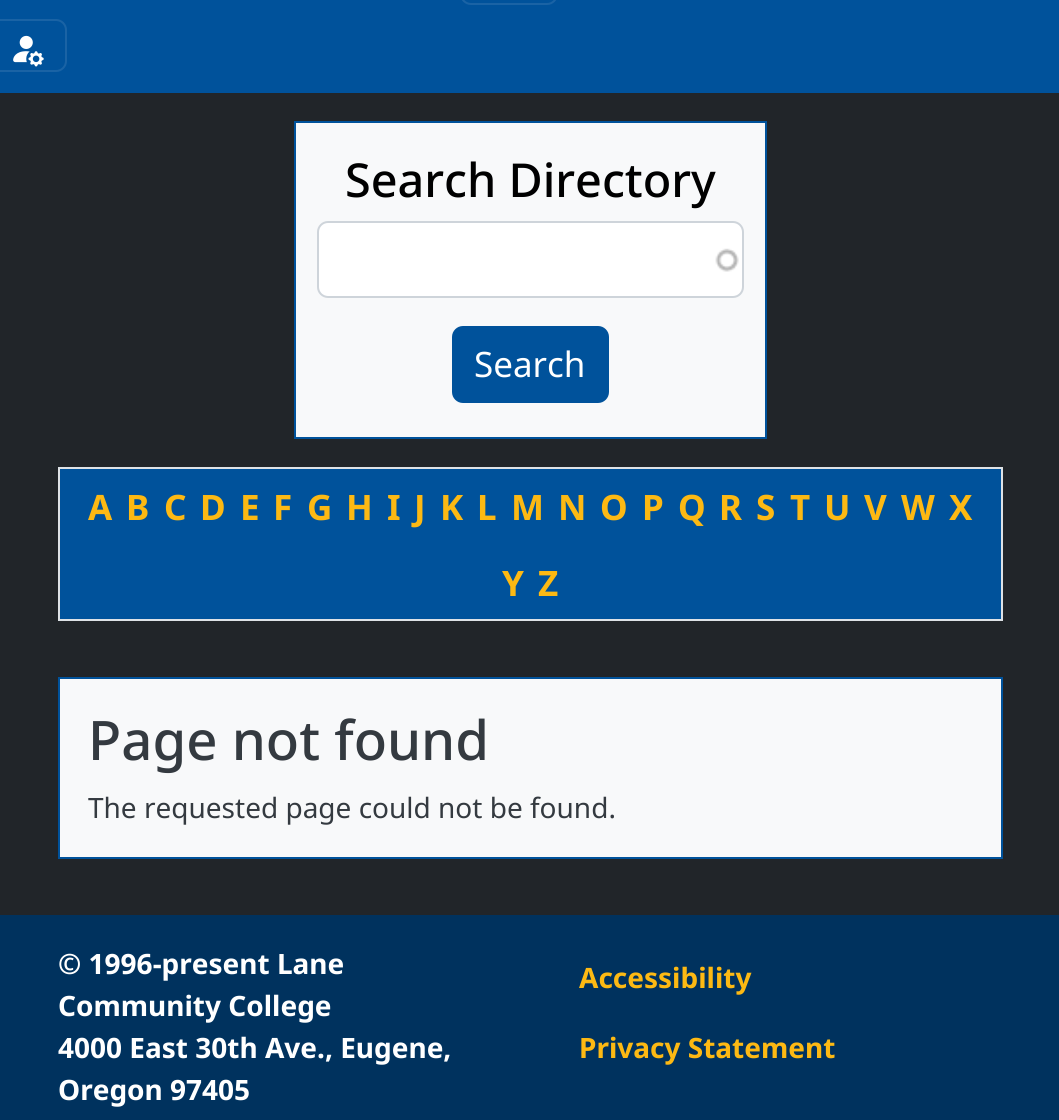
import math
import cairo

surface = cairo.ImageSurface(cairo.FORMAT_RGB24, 1059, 1120)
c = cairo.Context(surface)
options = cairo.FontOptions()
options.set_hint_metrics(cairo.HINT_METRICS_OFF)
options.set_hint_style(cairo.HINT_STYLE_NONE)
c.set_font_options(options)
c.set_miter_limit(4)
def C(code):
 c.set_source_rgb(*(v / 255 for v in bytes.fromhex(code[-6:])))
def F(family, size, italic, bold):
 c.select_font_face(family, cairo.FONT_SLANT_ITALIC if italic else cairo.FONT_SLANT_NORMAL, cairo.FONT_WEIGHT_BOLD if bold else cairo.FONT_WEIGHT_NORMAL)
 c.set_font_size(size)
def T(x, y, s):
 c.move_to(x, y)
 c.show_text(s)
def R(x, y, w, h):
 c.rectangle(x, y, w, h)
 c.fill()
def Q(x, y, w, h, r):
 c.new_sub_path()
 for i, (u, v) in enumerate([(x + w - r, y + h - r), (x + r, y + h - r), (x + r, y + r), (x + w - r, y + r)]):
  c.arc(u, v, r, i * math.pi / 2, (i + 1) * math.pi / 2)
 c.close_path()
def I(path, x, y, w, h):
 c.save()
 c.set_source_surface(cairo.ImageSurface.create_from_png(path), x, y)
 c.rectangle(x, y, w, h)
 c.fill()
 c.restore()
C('212529')
c.paint()
C('00529b')
R(0,0,1059,93)
Q(461,-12,96,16,10)
C('1a63a5')
c.stroke()
Q(-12,20,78,51,10)
c.stroke()
I('1.png',13,35,31,32)
C('f8f9fa')
c.rectangle(295,122,471,316)
c.fill_preserve()
C('00529b')
c.stroke()
F('Noto Sans Medium',46.75,0,0)
C('000000')
T(345,197,'Search Directory')
C('ffffff')
Q(319,222,423,74,9)
c.fill()
I('2.png',715,248,24,24)
Q(318,222,425,75,10)
C('ced4da')
c.stroke()
C('00529b')
Q(453,327,155,75,10)
c.fill_preserve()
c.stroke()
F('Noto Sans',35,0,0)
C('ffffff')
T(474,377,'Search')
C('00529b')
c.rectangle(59,468,943,152)
c.fill_preserve()
C('dee2e6')
c.stroke()
F('Noto Sans',35,0,1)
C('fdb913')
T(88,520,'A')
T(126,520,'B')
T(164,520,'C')
T(200,520,'D')
T(240,520,'E')
T(273,520,'F')
T(307,520,'G')
T(346,520,'H')
T(387,520,'I')
T(414,520,'J')
T(440,520,'K')
T(477,520,'L')
T(511,520,'M')
T(558,520,'N')
T(600,520,'O')
T(642,520,'P')
T(678,520,'Q')
T(719,520,'R')
T(756,520,'S')
T(790,520,'T')
T(824,520,'U')
T(864,520,'V')
T(901,520,'W')
T(949,520,'X')
T(502,596,'Y')
T(538,596,'Z')
C('f8f9fa')
c.rectangle(59,678,943,180)
c.fill_preserve()
C('00529b')
c.stroke()
F('Noto Sans Medium',54.5,0,0)
C('343a40')
T(88,760,'Page not found')
F('Noto Sans',28,0,0)
T(88,818,'The requested page could not be found.')
C('00325e')
R(0,915,1059,205)
F('Noto Sans',28,0,1)
C('ffffff')
T(58,974,'© 1996-present Lane')
T(58,1016,'Community College')
T(58,1058,'4000 East 30th Ave., Eugene,')
T(58,1100,'Oregon 97405')
C('fdb913')
T(579,988,'Accessibility')
T(579,1058,'Privacy Statement')
surface.write_to_png('o.png')
